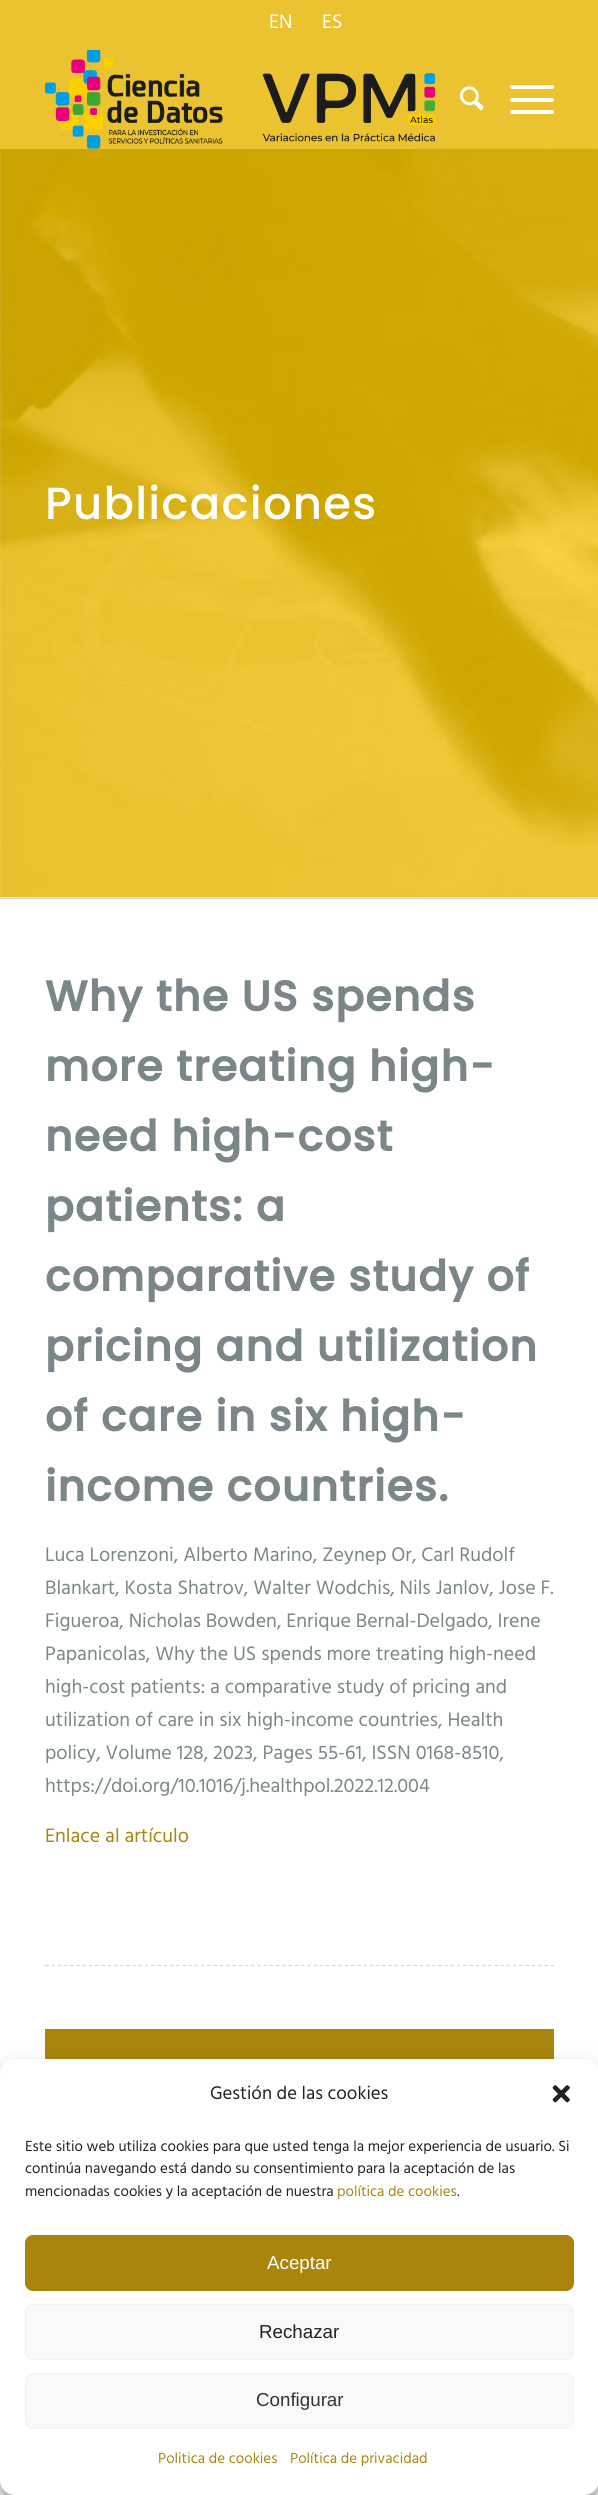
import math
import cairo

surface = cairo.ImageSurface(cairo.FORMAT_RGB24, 598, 2495)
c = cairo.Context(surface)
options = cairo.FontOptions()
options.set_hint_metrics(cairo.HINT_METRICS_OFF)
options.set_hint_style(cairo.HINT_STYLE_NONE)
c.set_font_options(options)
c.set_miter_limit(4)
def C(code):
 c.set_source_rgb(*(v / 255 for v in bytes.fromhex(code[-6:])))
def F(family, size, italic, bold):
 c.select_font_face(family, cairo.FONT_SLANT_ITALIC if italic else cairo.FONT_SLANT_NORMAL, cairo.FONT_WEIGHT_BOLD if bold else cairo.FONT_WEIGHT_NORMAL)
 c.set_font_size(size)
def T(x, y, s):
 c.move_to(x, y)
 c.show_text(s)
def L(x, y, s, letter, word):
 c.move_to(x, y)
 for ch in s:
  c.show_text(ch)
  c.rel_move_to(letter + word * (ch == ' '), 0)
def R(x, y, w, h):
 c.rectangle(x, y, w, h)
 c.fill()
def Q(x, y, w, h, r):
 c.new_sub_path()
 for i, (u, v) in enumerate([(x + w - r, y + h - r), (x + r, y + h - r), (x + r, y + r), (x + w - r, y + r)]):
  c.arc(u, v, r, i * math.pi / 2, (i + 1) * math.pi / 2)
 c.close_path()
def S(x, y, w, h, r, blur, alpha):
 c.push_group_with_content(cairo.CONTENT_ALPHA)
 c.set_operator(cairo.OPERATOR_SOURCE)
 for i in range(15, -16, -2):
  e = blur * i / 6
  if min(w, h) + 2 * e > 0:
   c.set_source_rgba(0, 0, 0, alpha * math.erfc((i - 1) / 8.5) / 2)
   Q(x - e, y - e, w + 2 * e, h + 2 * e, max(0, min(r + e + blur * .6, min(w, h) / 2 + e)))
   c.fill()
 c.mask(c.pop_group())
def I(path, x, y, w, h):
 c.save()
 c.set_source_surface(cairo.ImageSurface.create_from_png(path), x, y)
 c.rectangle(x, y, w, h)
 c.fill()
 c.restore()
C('ffffff')
c.paint()
C('ebc331')
R(0,0,598,149)
F('Hind Madurai',20,0,0)
C('ffffff')
T(269,28,'EN')
T(322,28,'ES')
I('1.png',45,50,390,99)
I('2.png',460,86,24,25)
Q(510,98,44,4,2)
c.fill()
Q(510,85,44,4,2)
c.fill()
Q(510,110,44,4,2)
c.fill()
I('3.png',0,149,598,749)
F('Poppins Medium',45,0,0)
L(45,519,'Publicaciones',1.25,0)
C('d9d9d9')
R(0,898,598,1)
F('Poppins',42.5,0,1)
C('7a8688')
L(45,1011,'Why the US spends',1.25,0)
L(45,1081,'more treating high-',1.25,0)
L(45,1151,'need high-cost',1.25,0)
L(45,1221,'patients: a',1.25,0)
L(45,1291,'comparative study of',1.25,0)
L(45,1361,'pricing and utilization',1.25,0)
L(45,1431,'of care in six high-',1.25,0)
L(45,1501,'income countries.',1.25,0)
F('Hind Madurai',20,0,0)
T(45,1561,'Luca Lorenzoni, Alberto Marino, Zeynep Or, Carl Rudolf')
T(45,1594,'Blankart, Kosta Shatrov, Walter Wodchis, Nils Janlov, Jose F.')
T(45,1627,'Figueroa, Nicholas Bowden, Enrique Bernal-Delgado, Irene')
T(45,1660,'Papanicolas, Why the US spends more treating high-need')
T(45,1693,'high-cost patients: a comparative study of pricing and')
T(45,1726,'utilization of care in six high-income countries, Health')
T(45,1759,'policy, Volume 128, 2023, Pages 55-61, ISSN 0168-8510,')
T(45,1792,'https://doi.org/10.1016/j.healthpol.2022.12.004')
C('a9850d')
T(45,1842,'Enlace al artículo')
c.new_path()
c.move_to(45,1965.5)
c.line_to(554,1965.5)
C('d9d9d9')
c.set_line_width(1.2)
c.set_dash([3.75,2.49])
c.stroke()
C('a9850d')
R(45,2029,509,30)
C('000000')
S(0,2066,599,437,15,4,.23)
S(0,2071,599,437,15,12.5,.19)
C('ffffff')
Q(0,2059,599,436,15)
c.fill()
F('Hind Madurai',18.75,0,0)
C('222222')
T(210,2099,'Gestión de las cookies')
I('4.png',552,2085,18,18)
F('Hind Madurai',15,0,0)
T(25,2151,'Este sitio web utiliza cookies para que usted tenga la mejor experiencia de usuario. Si')
T(25,2173,'continúa navegando está dando su consentimiento para la aceptación de las')
T(25,2196,'mencionadas cookies y la aceptación de nuestra')
C('a9850d')
T(337,2196,'política de cookies')
C('222222')
T(457,2196,'.')
C('a9850e')
Q(25.5,2235.5,548,55,7.5)
c.fill_preserve()
C('a88206')
c.set_line_width(1)
c.set_dash([])
c.stroke()
F('Liberation Sans',18.75,0,0)
C('ffffff')
T(267,2269,'Aceptar')
C('f9f9f9')
Q(25.5,2304.5,548,55,7.5)
c.fill_preserve()
C('f2f2f2')
c.stroke()
C('222222')
T(259,2338,'Rechazar')
C('f9f9f9')
Q(25.5,2373.5,548,55,7.5)
c.fill_preserve()
C('f2f2f2')
c.stroke()
C('333333')
T(256,2406,'Configurar')
F('Hind Madurai',15,0,0)
C('a9850d')
T(158,2463,'Politica de cookies')
T(290,2463,'Política de privacidad')
surface.write_to_png('o.png')
